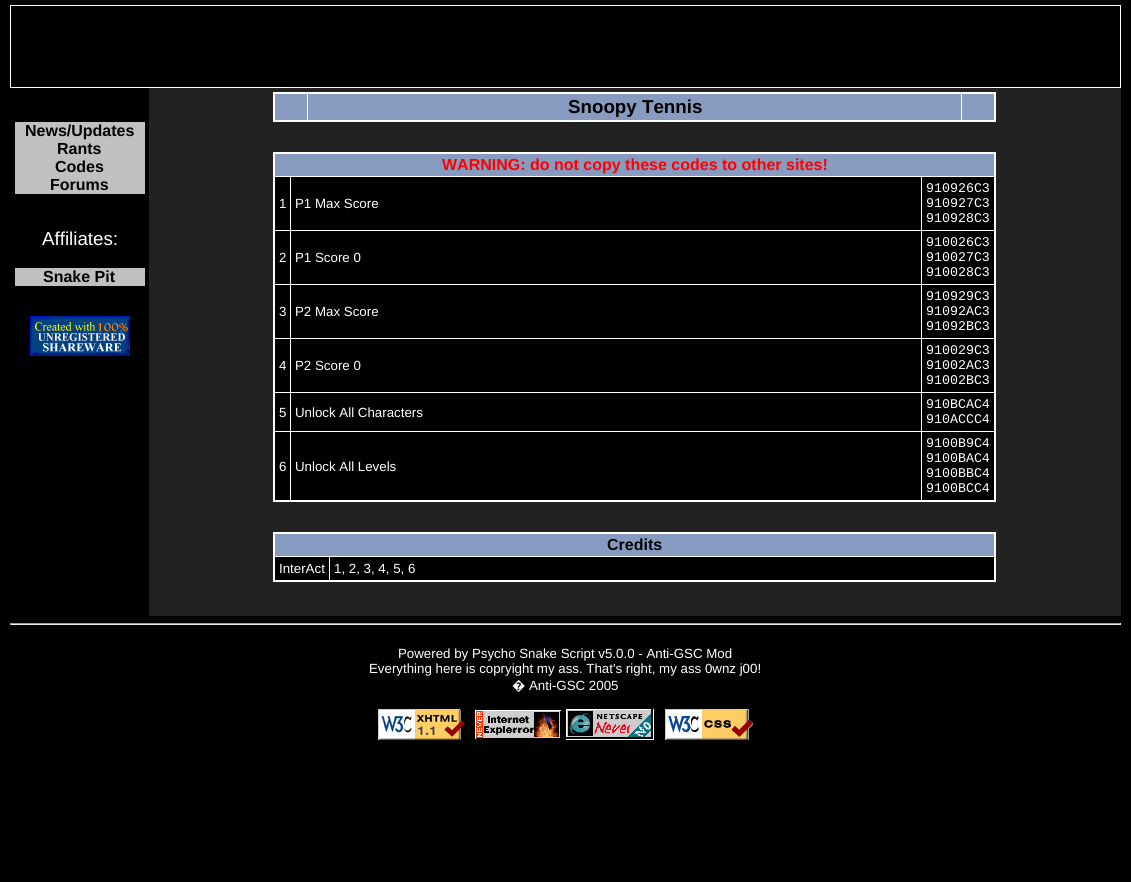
import math
import cairo

surface = cairo.ImageSurface(cairo.FORMAT_RGB24, 1131, 882)
c = cairo.Context(surface)
options = cairo.FontOptions()
options.set_hint_metrics(cairo.HINT_METRICS_OFF)
options.set_hint_style(cairo.HINT_STYLE_NONE)
c.set_font_options(options)
c.set_miter_limit(4)
def C(code):
 c.set_source_rgb(*(v / 255 for v in bytes.fromhex(code[-6:])))
def F(family, size, italic, bold):
 c.select_font_face(family, cairo.FONT_SLANT_ITALIC if italic else cairo.FONT_SLANT_NORMAL, cairo.FONT_WEIGHT_BOLD if bold else cairo.FONT_WEIGHT_NORMAL)
 c.set_font_size(size)
def T(x, y, s):
 c.move_to(x, y)
 c.show_text(s)
def R(x, y, w, h):
 c.rectangle(x, y, w, h)
 c.fill()
def I(path, x, y, w, h):
 c.save()
 c.set_source_surface(cairo.ImageSurface.create_from_png(path), x, y)
 c.rectangle(x, y, w, h)
 c.fill()
 c.restore()
C('000000')
c.paint()
C('ffffff')
R(10,5,1111,1)
R(1120,5,1,83)
R(10,87,1111,1)
R(10,5,1,83)
C('c0c0c0')
R(15,122,130,72)
F('Liberation Sans',16,0,1)
C('000000')
T(25,136,'News/Updates')
T(57,154,'Rants')
T(55,172,'Codes')
T(50,190,'Forums')
F('Liberation Sans',18.75,0,0)
C('ffffff')
T(42,245,'Affiliates:')
C('c0c0c0')
R(15,268,130,18)
F('Liberation Sans',16,0,1)
C('000000')
T(43,282,'Snake Pit')
I('1.png',30,316,100,40)
C('222222')
R(149,88,972,528)
C('ffffff')
R(307,93,1,29)
R(961,93,1,29)
R(273,92,723,2)
R(994,92,2,30)
R(273,120,723,2)
R(273,92,2,30)
C('869bbf')
R(275,94,32,26)
R(308,94,653,26)
F('Liberation Sans',18.75,0,1)
C('000000')
T(568,113,'Snoopy Tennis')
C('869bbf')
R(962,94,32,26)
C('000000')
R(275,177,719,323)
C('ffffff')
R(273,152,723,2)
R(921,176,75,1)
R(921,230,75,1)
R(921,284,75,1)
R(921,338,75,1)
R(921,392,75,1)
R(921,431,75,1)
R(994,152,2,350)
R(921,431,1,71)
R(290,431,632,1)
R(290,431,1,71)
R(273,500,723,2)
R(921,392,1,40)
R(290,392,632,1)
R(921,338,1,55)
R(290,338,632,1)
R(921,284,1,55)
R(290,284,632,1)
R(921,230,1,55)
R(290,230,632,1)
R(921,176,1,55)
R(290,176,632,1)
R(274,431,17,1)
R(290,392,1,40)
R(274,392,17,1)
R(290,338,1,55)
R(274,338,17,1)
R(290,284,1,55)
R(274,284,17,1)
R(290,230,1,55)
R(274,230,17,1)
R(290,176,1,55)
R(274,176,17,1)
R(273,152,2,350)
C('869bbf')
R(275,154,719,22)
F('Liberation Sans',16,0,1)
C('ff0000')
T(442,170,'WARNING: do not copy these codes to other sites!')
F('Liberation Sans',13.3,0,0)
C('ffffff')
T(279,208,'1')
T(295,208,'P1 Max Score')
F('Liberation Mono',13.3,0,0)
T(926,192,'910926C3')
T(926,207,'910927C3')
T(926,222,'910928C3')
F('Liberation Sans',13.3,0,0)
T(279,262,'2')
T(295,262,'P1 Score 0')
F('Liberation Mono',13.3,0,0)
T(926,246,'910026C3')
T(926,261,'910027C3')
T(926,276,'910028C3')
F('Liberation Sans',13.3,0,0)
T(279,316,'3')
T(295,316,'P2 Max Score')
F('Liberation Mono',13.3,0,0)
T(926,300,'910929C3')
T(926,315,'91092AC3')
T(926,330,'91092BC3')
F('Liberation Sans',13.3,0,0)
T(279,370,'4')
T(295,370,'P2 Score 0')
F('Liberation Mono',13.3,0,0)
T(926,354,'910029C3')
T(926,369,'91002AC3')
T(926,384,'91002BC3')
F('Liberation Sans',13.3,0,0)
T(279,417,'5')
T(295,417,'Unlock All Characters')
F('Liberation Mono',13.3,0,0)
T(926,408,'910BCAC4')
T(926,423,'910ACCC4')
F('Liberation Sans',13.3,0,0)
T(279,471,'6')
T(295,471,'Unlock All Levels')
F('Liberation Mono',13.3,0,0)
T(926,447,'9100B9C4')
T(926,462,'9100BAC4')
T(926,477,'9100BBC4')
T(926,492,'9100BCC4')
C('000000')
R(275,557,719,23)
C('ffffff')
R(273,532,723,2)
R(329,556,667,1)
R(994,532,2,50)
R(329,556,1,26)
R(273,580,723,2)
R(274,556,56,1)
R(273,532,2,50)
C('869bbf')
R(275,534,719,22)
F('Liberation Sans',16,0,1)
C('000000')
T(607,550,'Credits')
F('Liberation Sans',13.3,0,0)
C('ffffff')
T(279,573,'InterAct')
T(334,573,'1, 2, 3, 4, 5, 6')
C('9f9f9f')
R(10,623,1111,1)
C('eeeeee')
R(1120,623,1,2)
R(10,624,1111,1)
C('9f9f9f')
R(10,623,1,2)
C('ffffff')
T(398,658,'Powered by Psycho Snake Script v5.0.0 - Anti-GSC Mod')
T(369,673,'Everything here is copryight my ass. That\'s right, my ass 0wnz j00!')
F('Noto Sans',13.3,0,0)
T(512,690,'�')
F('Liberation Sans',13.3,0,0)
T(529,690,'Anti-GSC 2005')
I('2.png',378,709,87,31)
I('3.png',475,710,86,29)
I('4.png',566,709,88,31)
I('5.png',665,709,88,31)
surface.write_to_png('o.png')
